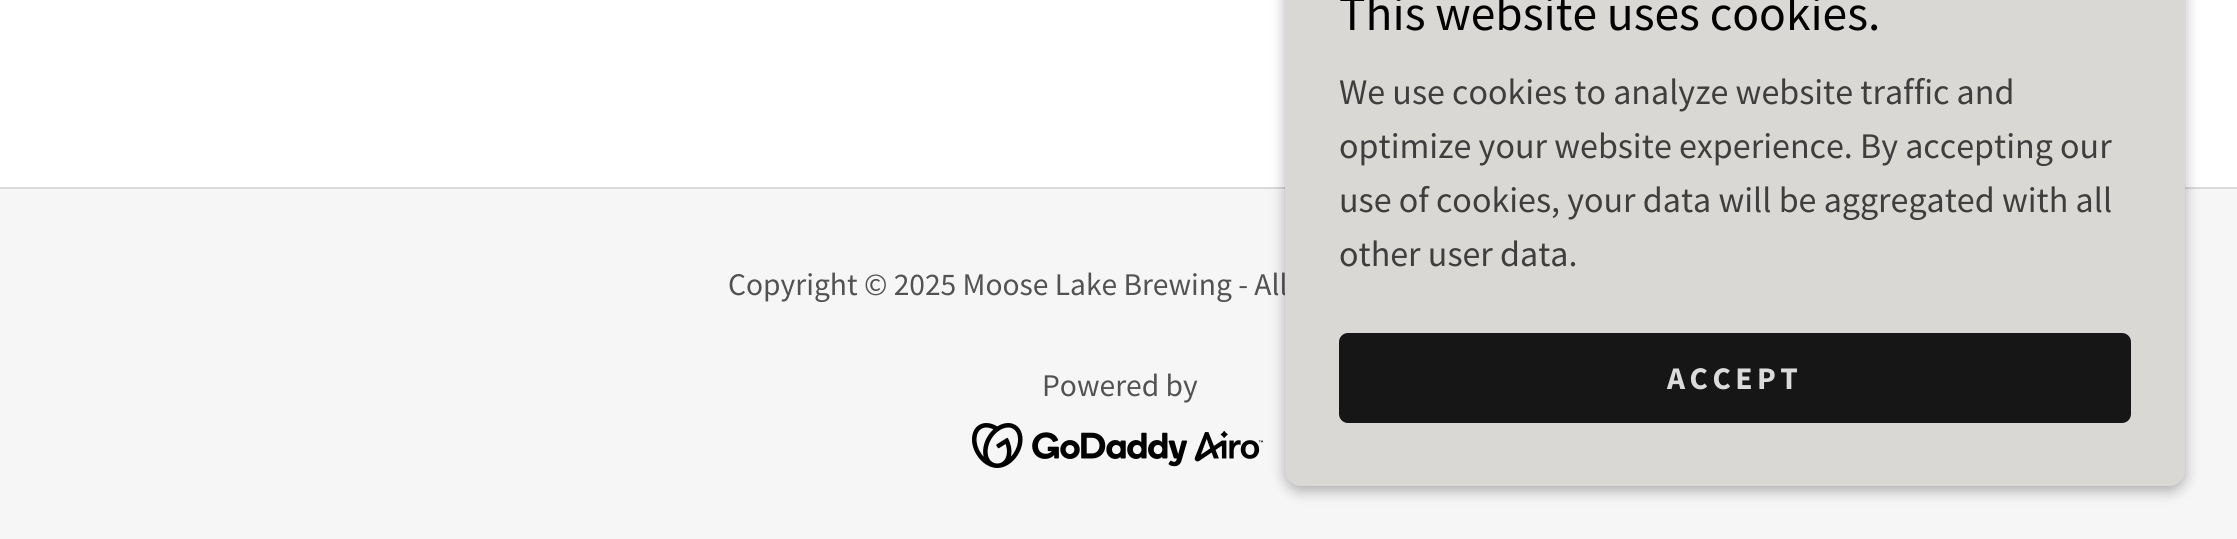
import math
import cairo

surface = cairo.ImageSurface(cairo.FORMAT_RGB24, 2237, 539)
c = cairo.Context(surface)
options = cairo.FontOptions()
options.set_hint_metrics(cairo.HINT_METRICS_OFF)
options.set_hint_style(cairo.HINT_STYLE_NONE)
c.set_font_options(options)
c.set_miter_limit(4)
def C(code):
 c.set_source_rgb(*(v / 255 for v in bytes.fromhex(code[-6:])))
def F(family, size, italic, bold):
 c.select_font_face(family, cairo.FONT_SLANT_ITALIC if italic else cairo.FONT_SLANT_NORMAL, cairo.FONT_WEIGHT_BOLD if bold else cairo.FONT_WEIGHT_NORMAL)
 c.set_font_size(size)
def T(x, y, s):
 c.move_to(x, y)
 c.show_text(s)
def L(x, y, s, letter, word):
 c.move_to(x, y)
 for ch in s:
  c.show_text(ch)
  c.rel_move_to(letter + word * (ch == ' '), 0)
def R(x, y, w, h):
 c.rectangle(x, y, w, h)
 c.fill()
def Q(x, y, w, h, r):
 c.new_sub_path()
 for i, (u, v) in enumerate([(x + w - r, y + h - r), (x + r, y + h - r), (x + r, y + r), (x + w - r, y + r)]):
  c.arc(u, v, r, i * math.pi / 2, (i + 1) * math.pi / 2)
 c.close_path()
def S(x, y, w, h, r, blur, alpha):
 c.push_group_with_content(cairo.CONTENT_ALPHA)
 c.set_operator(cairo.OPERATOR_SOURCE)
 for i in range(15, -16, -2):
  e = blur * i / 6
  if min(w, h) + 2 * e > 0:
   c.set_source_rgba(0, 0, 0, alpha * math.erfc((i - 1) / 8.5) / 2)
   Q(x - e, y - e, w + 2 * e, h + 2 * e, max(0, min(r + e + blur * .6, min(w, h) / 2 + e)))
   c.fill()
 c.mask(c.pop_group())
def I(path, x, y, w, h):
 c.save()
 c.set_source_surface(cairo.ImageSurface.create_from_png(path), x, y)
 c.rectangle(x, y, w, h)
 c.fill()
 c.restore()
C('f6f6f6')
c.paint()
C('ffffff')
R(0,0,2237,187)
C('dadada')
R(0,187,2237,2)
F('Source Sans Pro',31.5,0,0)
C('525252')
T(728,295,'Copyright © 2025 Moose Lake Brewing - All')
T(1042,396,'Powered by')
I('1.png',972,423,291,45)
C('000000')
S(1285,-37,900,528,16,7,.3)
C('dad8d5')
Q(1285,-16,900,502,16)
c.fill()
F('Source Sans Pro',49.5,0,0)
C('000000')
T(1339,30,'This website uses cookies.')
F('Source Sans Pro',36,0,0)
C('3f3e3e')
T(1339,104,'We use cookies to analyze website traffic and')
T(1339,158,'optimize your website experience. By accepting our')
T(1339,212,'use of cookies, your data will be aggregated with all')
T(1339,266,'other user data.')
C('161616')
Q(1339,333,792,90,9)
c.fill()
F('Source Sans Pro',31.5,0,1)
C('dbdbdb')
L(1667,389,'ACCEPT',4.5,0)
surface.write_to_png('o.png')
